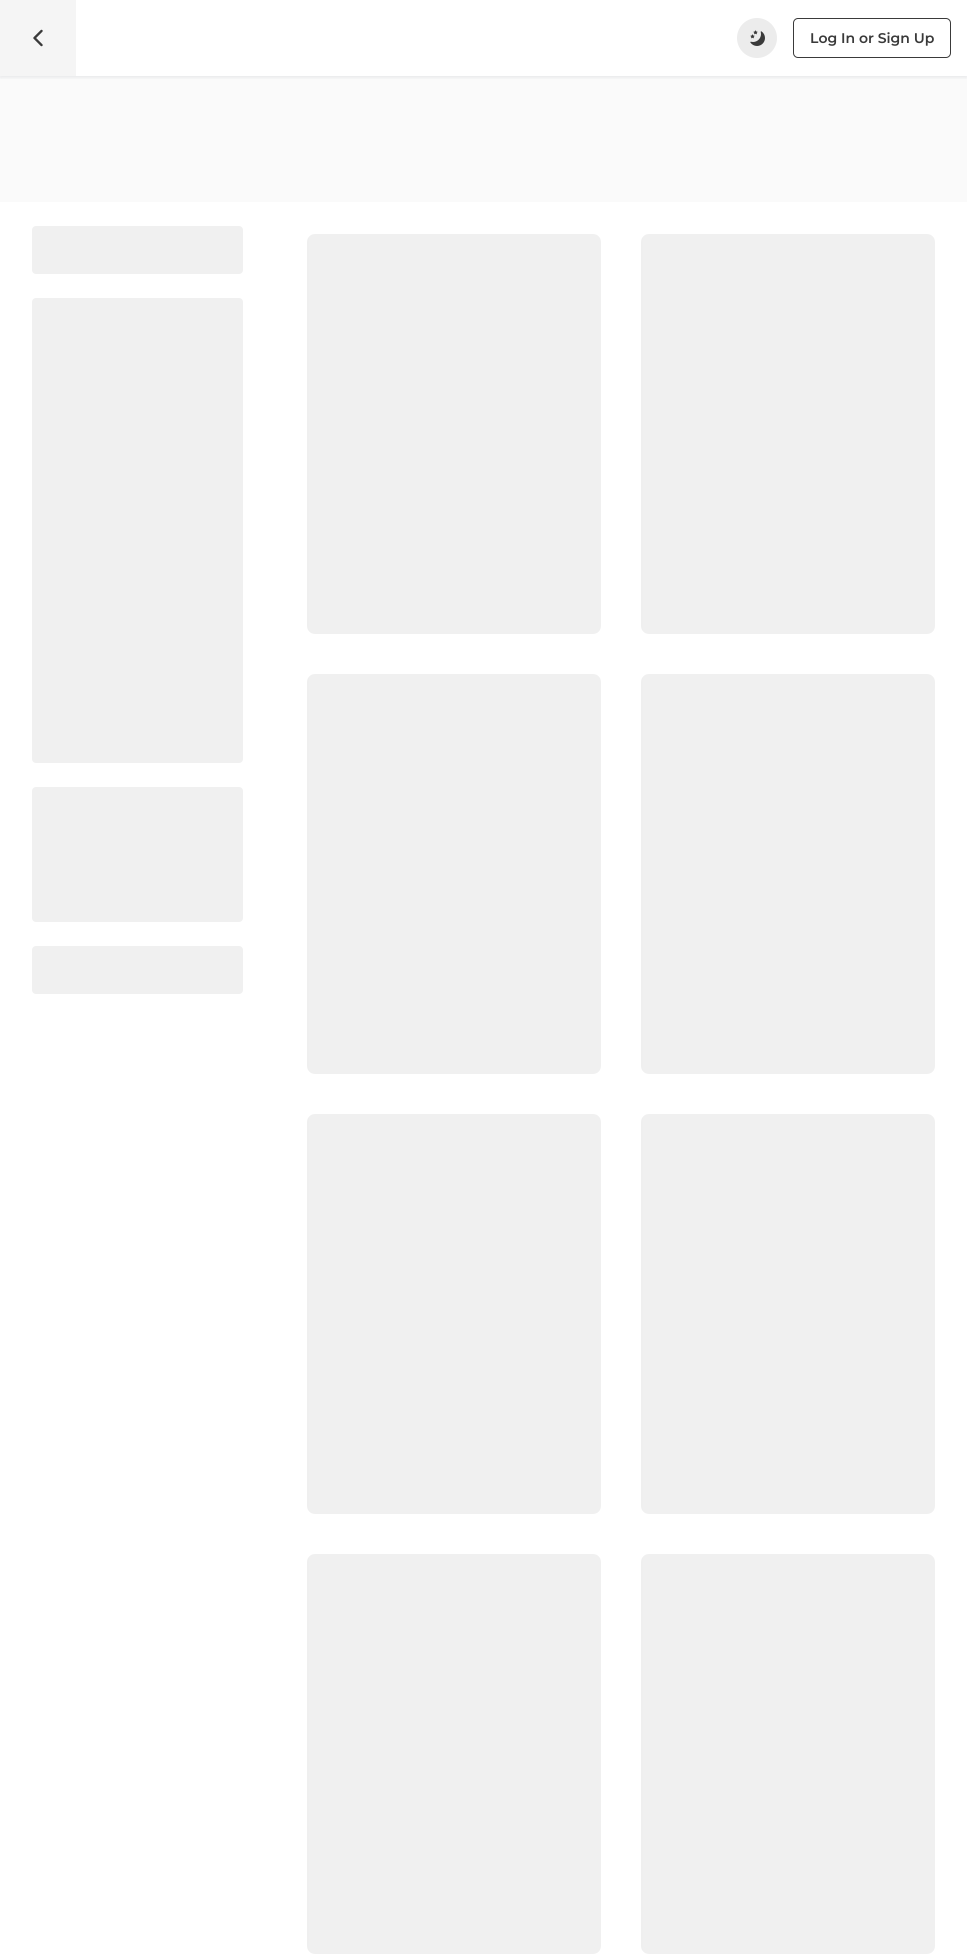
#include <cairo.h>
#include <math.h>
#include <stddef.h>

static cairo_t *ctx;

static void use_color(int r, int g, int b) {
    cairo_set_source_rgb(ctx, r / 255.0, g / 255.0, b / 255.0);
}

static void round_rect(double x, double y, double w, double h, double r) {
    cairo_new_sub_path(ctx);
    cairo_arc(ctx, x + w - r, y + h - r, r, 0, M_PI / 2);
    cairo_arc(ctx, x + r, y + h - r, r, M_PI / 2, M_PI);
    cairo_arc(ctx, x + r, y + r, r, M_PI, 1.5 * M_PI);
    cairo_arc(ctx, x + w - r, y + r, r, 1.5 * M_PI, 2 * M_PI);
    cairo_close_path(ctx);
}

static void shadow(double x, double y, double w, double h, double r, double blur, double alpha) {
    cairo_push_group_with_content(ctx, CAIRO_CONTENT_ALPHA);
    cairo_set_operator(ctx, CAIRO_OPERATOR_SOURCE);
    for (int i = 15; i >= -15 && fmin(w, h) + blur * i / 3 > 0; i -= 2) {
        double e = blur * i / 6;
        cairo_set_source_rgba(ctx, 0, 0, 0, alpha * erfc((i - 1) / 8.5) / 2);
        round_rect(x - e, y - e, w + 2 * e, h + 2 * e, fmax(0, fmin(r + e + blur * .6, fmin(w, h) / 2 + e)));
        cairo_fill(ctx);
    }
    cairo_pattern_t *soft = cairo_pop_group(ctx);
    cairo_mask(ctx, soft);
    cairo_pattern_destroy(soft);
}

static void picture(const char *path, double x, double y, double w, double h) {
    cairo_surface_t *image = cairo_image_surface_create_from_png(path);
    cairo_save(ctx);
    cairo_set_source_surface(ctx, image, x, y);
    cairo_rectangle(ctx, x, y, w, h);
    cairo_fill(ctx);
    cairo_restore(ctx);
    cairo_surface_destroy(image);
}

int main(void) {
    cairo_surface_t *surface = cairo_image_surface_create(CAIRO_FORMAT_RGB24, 967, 1959);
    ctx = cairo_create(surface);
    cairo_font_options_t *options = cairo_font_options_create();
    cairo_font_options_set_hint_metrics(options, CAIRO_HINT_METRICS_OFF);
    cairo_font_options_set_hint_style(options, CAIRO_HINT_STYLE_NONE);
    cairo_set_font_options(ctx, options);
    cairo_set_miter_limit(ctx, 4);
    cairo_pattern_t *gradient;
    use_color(255, 255, 255);
    cairo_paint(ctx);
    use_color(250, 250, 250);
    cairo_rectangle(ctx, 0, 76, 967, 126);
    cairo_fill(ctx);
    cairo_save(ctx);
    cairo_rectangle(ctx, 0, 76, 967, 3);
    cairo_clip(ctx);
    use_color(17, 30, 57);
    shadow(0, 1, 967, 76, 0, 2.5, 0.1);
    cairo_restore(ctx);
    use_color(245, 245, 245);
    cairo_rectangle(ctx, 0, 0, 76, 76);
    cairo_fill(ctx);
    picture("img1.png", 33, 29, 10, 18);
    use_color(236, 236, 236);
    cairo_arc(ctx, 757, 38, 20, 0, 2 * M_PI);
    cairo_fill(ctx);
    picture("img2.png", 750, 30, 15, 16);
    round_rect(793.5, 18.5, 157, 39, 4.5);
    use_color(58, 58, 58);
    cairo_set_line_width(ctx, 1);
    cairo_stroke(ctx);
    cairo_select_font_face(ctx, "Montserrat SemiBold", CAIRO_FONT_SLANT_NORMAL, CAIRO_FONT_WEIGHT_NORMAL);
    cairo_set_font_size(ctx, 14);
    cairo_move_to(ctx, 810, 43);
    cairo_show_text(ctx, "Log In or Sign Up");
    use_color(240, 240, 240);
    round_rect(32, 226, 211, 48, 4);
    cairo_fill(ctx);
    round_rect(32, 298, 211, 465, 4);
    cairo_fill(ctx);
    round_rect(32, 787, 211, 135, 4);
    cairo_fill(ctx);
    round_rect(32, 946, 211, 48, 4);
    cairo_fill(ctx);
    gradient = cairo_pattern_create_linear(54, 434, 854, 434);
    cairo_pattern_add_color_stop_rgba(gradient, 0.08, 0.941, 0.941, 0.941, 1);
    cairo_pattern_add_color_stop_rgba(gradient, 0.18, 0.918, 0.918, 0.918, 1);
    cairo_pattern_add_color_stop_rgba(gradient, 0.33, 0.941, 0.941, 0.941, 1);
    cairo_set_source(ctx, gradient);
    cairo_pattern_destroy(gradient);
    round_rect(307, 234, 294, 400, 8);
    cairo_fill(ctx);
    gradient = cairo_pattern_create_linear(388, 434, 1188, 434);
    cairo_pattern_add_color_stop_rgba(gradient, 0.08, 0.941, 0.941, 0.941, 1);
    cairo_pattern_add_color_stop_rgba(gradient, 0.18, 0.918, 0.918, 0.918, 1);
    cairo_pattern_add_color_stop_rgba(gradient, 0.33, 0.941, 0.941, 0.941, 1);
    cairo_set_source(ctx, gradient);
    cairo_pattern_destroy(gradient);
    round_rect(641, 234, 294, 400, 8);
    cairo_fill(ctx);
    gradient = cairo_pattern_create_linear(54, 874, 854, 874);
    cairo_pattern_add_color_stop_rgba(gradient, 0.08, 0.941, 0.941, 0.941, 1);
    cairo_pattern_add_color_stop_rgba(gradient, 0.18, 0.918, 0.918, 0.918, 1);
    cairo_pattern_add_color_stop_rgba(gradient, 0.33, 0.941, 0.941, 0.941, 1);
    cairo_set_source(ctx, gradient);
    cairo_pattern_destroy(gradient);
    round_rect(307, 674, 294, 400, 8);
    cairo_fill(ctx);
    gradient = cairo_pattern_create_linear(388, 874, 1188, 874);
    cairo_pattern_add_color_stop_rgba(gradient, 0.08, 0.941, 0.941, 0.941, 1);
    cairo_pattern_add_color_stop_rgba(gradient, 0.18, 0.918, 0.918, 0.918, 1);
    cairo_pattern_add_color_stop_rgba(gradient, 0.33, 0.941, 0.941, 0.941, 1);
    cairo_set_source(ctx, gradient);
    cairo_pattern_destroy(gradient);
    round_rect(641, 674, 294, 400, 8);
    cairo_fill(ctx);
    gradient = cairo_pattern_create_linear(54, 1314, 854, 1314);
    cairo_pattern_add_color_stop_rgba(gradient, 0.08, 0.941, 0.941, 0.941, 1);
    cairo_pattern_add_color_stop_rgba(gradient, 0.18, 0.918, 0.918, 0.918, 1);
    cairo_pattern_add_color_stop_rgba(gradient, 0.33, 0.941, 0.941, 0.941, 1);
    cairo_set_source(ctx, gradient);
    cairo_pattern_destroy(gradient);
    round_rect(307, 1114, 294, 400, 8);
    cairo_fill(ctx);
    gradient = cairo_pattern_create_linear(388, 1314, 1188, 1314);
    cairo_pattern_add_color_stop_rgba(gradient, 0.08, 0.941, 0.941, 0.941, 1);
    cairo_pattern_add_color_stop_rgba(gradient, 0.18, 0.918, 0.918, 0.918, 1);
    cairo_pattern_add_color_stop_rgba(gradient, 0.33, 0.941, 0.941, 0.941, 1);
    cairo_set_source(ctx, gradient);
    cairo_pattern_destroy(gradient);
    round_rect(641, 1114, 294, 400, 8);
    cairo_fill(ctx);
    gradient = cairo_pattern_create_linear(54, 1754, 854, 1754);
    cairo_pattern_add_color_stop_rgba(gradient, 0.08, 0.941, 0.941, 0.941, 1);
    cairo_pattern_add_color_stop_rgba(gradient, 0.18, 0.918, 0.918, 0.918, 1);
    cairo_pattern_add_color_stop_rgba(gradient, 0.33, 0.941, 0.941, 0.941, 1);
    cairo_set_source(ctx, gradient);
    cairo_pattern_destroy(gradient);
    round_rect(307, 1554, 294, 400, 8);
    cairo_fill(ctx);
    gradient = cairo_pattern_create_linear(388, 1754, 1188, 1754);
    cairo_pattern_add_color_stop_rgba(gradient, 0.08, 0.941, 0.941, 0.941, 1);
    cairo_pattern_add_color_stop_rgba(gradient, 0.18, 0.918, 0.918, 0.918, 1);
    cairo_pattern_add_color_stop_rgba(gradient, 0.33, 0.941, 0.941, 0.941, 1);
    cairo_set_source(ctx, gradient);
    cairo_pattern_destroy(gradient);
    round_rect(641, 1554, 294, 400, 8);
    cairo_fill(ctx);
    cairo_surface_write_to_png(surface, "result.png");
    cairo_font_options_destroy(options);
    cairo_destroy(ctx);
    cairo_surface_destroy(surface);
    return 0;
}
